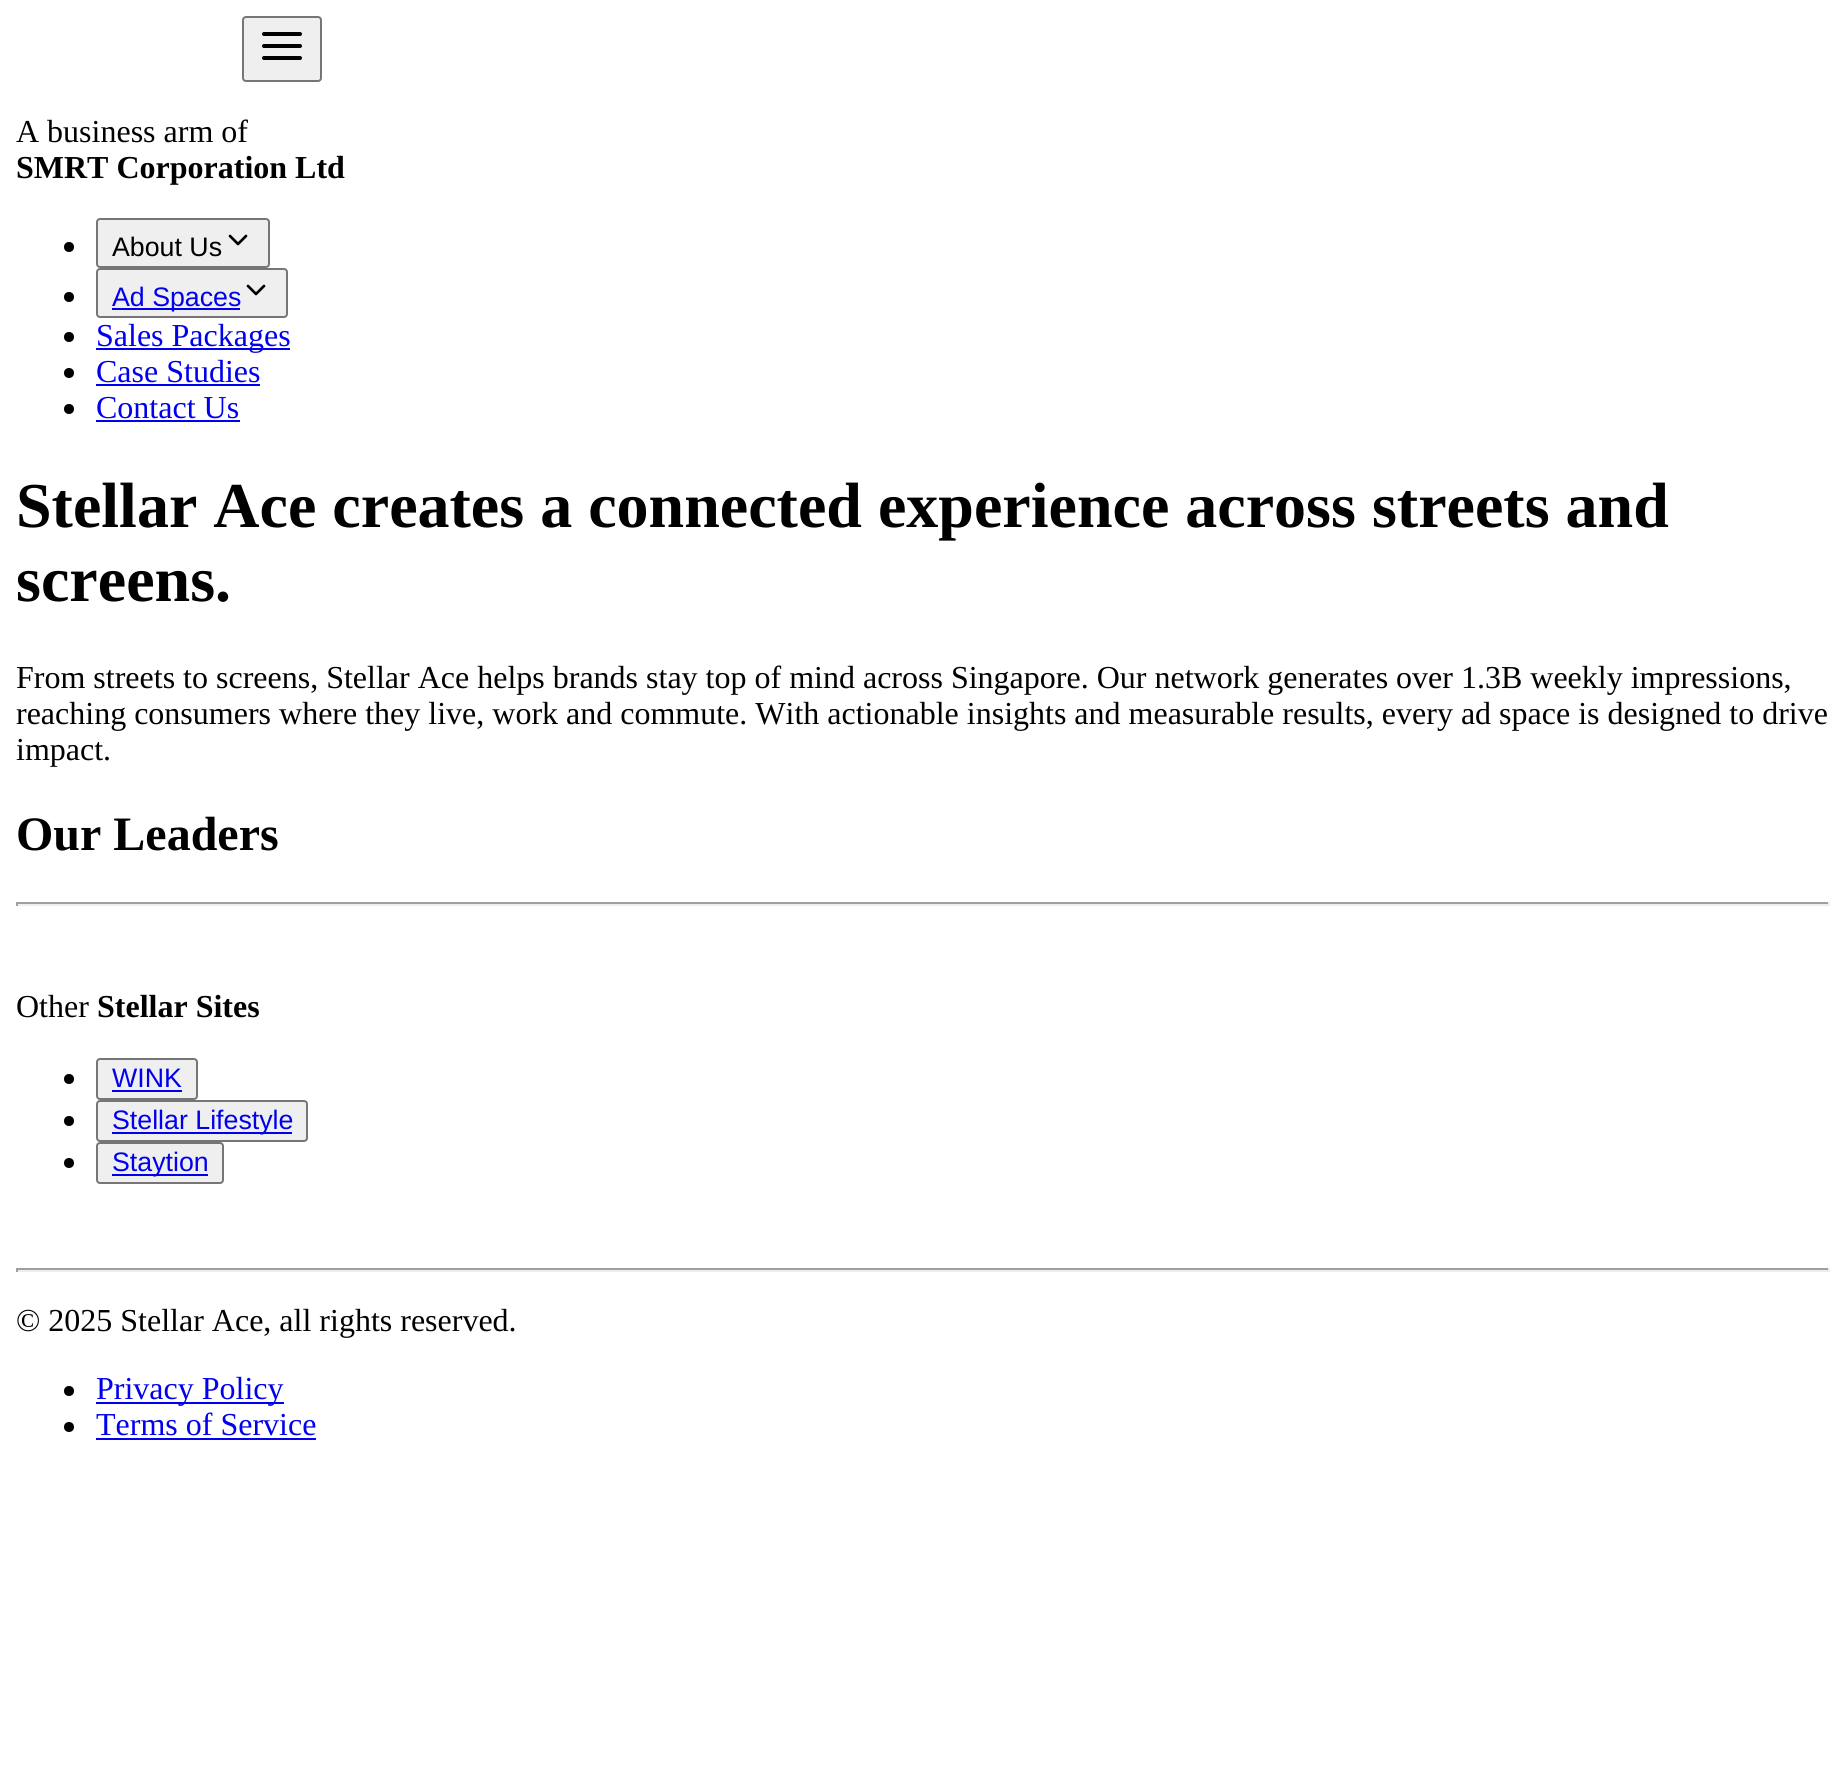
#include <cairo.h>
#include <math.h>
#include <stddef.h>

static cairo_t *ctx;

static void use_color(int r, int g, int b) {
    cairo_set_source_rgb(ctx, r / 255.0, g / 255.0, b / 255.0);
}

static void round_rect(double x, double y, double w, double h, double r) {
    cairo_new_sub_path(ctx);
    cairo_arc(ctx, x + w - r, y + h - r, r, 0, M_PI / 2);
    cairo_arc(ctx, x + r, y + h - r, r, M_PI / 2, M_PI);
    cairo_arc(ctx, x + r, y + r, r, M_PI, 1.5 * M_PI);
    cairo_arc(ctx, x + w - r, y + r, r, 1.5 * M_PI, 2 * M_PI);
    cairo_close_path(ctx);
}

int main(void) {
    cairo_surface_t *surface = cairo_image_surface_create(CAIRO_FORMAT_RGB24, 1846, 1781);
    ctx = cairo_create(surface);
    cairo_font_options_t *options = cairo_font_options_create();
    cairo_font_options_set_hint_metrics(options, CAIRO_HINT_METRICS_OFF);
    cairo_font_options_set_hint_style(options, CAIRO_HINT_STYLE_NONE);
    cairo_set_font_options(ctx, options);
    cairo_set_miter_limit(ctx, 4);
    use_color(255, 255, 255);
    cairo_paint(ctx);
    use_color(239, 239, 239);
    round_rect(243, 17, 78, 64, 3);
    cairo_fill_preserve(ctx);
    use_color(118, 118, 118);
    cairo_stroke(ctx);
    cairo_new_path(ctx);
    cairo_move_to(ctx, 264, 46);
    cairo_line_to(ctx, 300, 46);
    cairo_move_to(ctx, 264, 34);
    cairo_line_to(ctx, 300, 34);
    cairo_move_to(ctx, 264, 58);
    cairo_line_to(ctx, 300, 58);
    use_color(0, 0, 0);
    cairo_set_line_width(ctx, 4);
    cairo_set_line_cap(ctx, CAIRO_LINE_CAP_ROUND);
    cairo_set_line_join(ctx, CAIRO_LINE_JOIN_ROUND);
    cairo_stroke(ctx);
    cairo_select_font_face(ctx, "Liberation Serif", CAIRO_FONT_SLANT_NORMAL, CAIRO_FONT_WEIGHT_NORMAL);
    cairo_set_font_size(ctx, 32);
    cairo_move_to(ctx, 16, 142);
    cairo_show_text(ctx, "A business arm of");
    cairo_select_font_face(ctx, "Liberation Serif", CAIRO_FONT_SLANT_NORMAL, CAIRO_FONT_WEIGHT_BOLD);
    cairo_move_to(ctx, 16, 178);
    cairo_show_text(ctx, "SMRT Corporation Ltd");
    cairo_new_path(ctx);
    cairo_arc(ctx, 69, 247, 5, 0, 2 * M_PI);
    cairo_fill(ctx);
    use_color(239, 239, 239);
    round_rect(97, 219, 172, 48, 3);
    cairo_fill_preserve(ctx);
    use_color(118, 118, 118);
    cairo_set_line_width(ctx, 2);
    cairo_set_line_cap(ctx, CAIRO_LINE_CAP_BUTT);
    cairo_set_line_join(ctx, CAIRO_LINE_JOIN_MITER);
    cairo_stroke(ctx);
    cairo_select_font_face(ctx, "Liberation Sans", CAIRO_FONT_SLANT_NORMAL, CAIRO_FONT_WEIGHT_NORMAL);
    cairo_set_font_size(ctx, 26.75);
    use_color(0, 0, 0);
    cairo_move_to(ctx, 112, 256);
    cairo_show_text(ctx, "About Us");
    use_color(239, 239, 239);
    round_rect(97, 269, 190, 48, 3);
    cairo_fill_preserve(ctx);
    use_color(118, 118, 118);
    cairo_stroke(ctx);
    use_color(0, 0, 238);
    cairo_rectangle(ctx, 112, 308, 128, 2);
    cairo_fill(ctx);
    cairo_move_to(ctx, 112, 306);
    cairo_show_text(ctx, "Ad Spaces");
    cairo_new_path(ctx);
    cairo_move_to(ctx, 230, 236);
    cairo_line_to(ctx, 238, 244);
    cairo_line_to(ctx, 246, 236);
    cairo_move_to(ctx, 248, 286);
    cairo_line_to(ctx, 256, 294);
    cairo_line_to(ctx, 264, 286);
    use_color(0, 0, 0);
    cairo_set_line_width(ctx, 2.7);
    cairo_set_line_cap(ctx, CAIRO_LINE_CAP_ROUND);
    cairo_set_line_join(ctx, CAIRO_LINE_JOIN_ROUND);
    cairo_stroke(ctx);
    cairo_arc(ctx, 69, 297, 5, 0, 2 * M_PI);
    cairo_fill(ctx);
    cairo_arc(ctx, 69, 337, 5, 0, 2 * M_PI);
    cairo_fill(ctx);
    use_color(0, 0, 238);
    cairo_rectangle(ctx, 96, 348, 194, 2);
    cairo_fill(ctx);
    cairo_select_font_face(ctx, "Liberation Serif", CAIRO_FONT_SLANT_NORMAL, CAIRO_FONT_WEIGHT_NORMAL);
    cairo_set_font_size(ctx, 32);
    cairo_move_to(ctx, 96, 346);
    cairo_show_text(ctx, "Sales Packages");
    use_color(0, 0, 0);
    cairo_new_path(ctx);
    cairo_arc(ctx, 69, 373, 5, 0, 2 * M_PI);
    cairo_fill(ctx);
    use_color(0, 0, 238);
    cairo_move_to(ctx, 96, 382);
    cairo_show_text(ctx, "Case Studies");
    cairo_rectangle(ctx, 96, 384, 164, 2);
    cairo_fill(ctx);
    use_color(0, 0, 0);
    cairo_arc(ctx, 69, 409, 5, 0, 2 * M_PI);
    cairo_fill(ctx);
    use_color(0, 0, 238);
    cairo_move_to(ctx, 96, 418);
    cairo_show_text(ctx, "Contact Us");
    cairo_rectangle(ctx, 96, 420, 144, 2);
    cairo_fill(ctx);
    cairo_select_font_face(ctx, "Liberation Serif", CAIRO_FONT_SLANT_NORMAL, CAIRO_FONT_WEIGHT_BOLD);
    cairo_set_font_size(ctx, 64);
    use_color(0, 0, 0);
    cairo_move_to(ctx, 16, 527);
    cairo_show_text(ctx, "Stellar Ace creates a connected experience across streets and");
    cairo_move_to(ctx, 16, 601);
    cairo_show_text(ctx, "screens.");
    cairo_select_font_face(ctx, "Liberation Serif", CAIRO_FONT_SLANT_NORMAL, CAIRO_FONT_WEIGHT_NORMAL);
    cairo_set_font_size(ctx, 32);
    cairo_move_to(ctx, 16, 688);
    cairo_show_text(ctx, "From streets to screens, Stellar Ace helps brands stay top of mind across Singapore. Our network generates over 1.3B weekly impressions,");
    cairo_move_to(ctx, 16, 724);
    cairo_show_text(ctx, "reaching consumers where they live, work and commute. With actionable insights and measurable results, every ad space is designed to drive");
    cairo_move_to(ctx, 16, 760);
    cairo_show_text(ctx, "impact.");
    cairo_select_font_face(ctx, "Liberation Serif", CAIRO_FONT_SLANT_NORMAL, CAIRO_FONT_WEIGHT_BOLD);
    cairo_set_font_size(ctx, 48);
    cairo_move_to(ctx, 16, 850);
    cairo_show_text(ctx, "Our Leaders");
    use_color(159, 159, 159);
    cairo_rectangle(ctx, 16, 902, 1814, 2);
    cairo_fill(ctx);
    use_color(238, 238, 238);
    cairo_rectangle(ctx, 1828, 902, 2, 4);
    cairo_fill(ctx);
    cairo_rectangle(ctx, 16, 904, 1814, 2);
    cairo_fill(ctx);
    use_color(159, 159, 159);
    cairo_rectangle(ctx, 16, 902, 2, 4);
    cairo_fill(ctx);
    cairo_select_font_face(ctx, "Liberation Serif", CAIRO_FONT_SLANT_NORMAL, CAIRO_FONT_WEIGHT_NORMAL);
    cairo_set_font_size(ctx, 32);
    use_color(0, 0, 0);
    cairo_move_to(ctx, 16, 1017);
    cairo_show_text(ctx, "Other");
    cairo_select_font_face(ctx, "Liberation Serif", CAIRO_FONT_SLANT_NORMAL, CAIRO_FONT_WEIGHT_BOLD);
    cairo_move_to(ctx, 97, 1017);
    cairo_show_text(ctx, "Stellar Sites");
    cairo_new_path(ctx);
    cairo_arc(ctx, 69, 1079, 5, 0, 2 * M_PI);
    cairo_fill(ctx);
    use_color(239, 239, 239);
    round_rect(97, 1059, 100, 40, 3);
    cairo_fill_preserve(ctx);
    use_color(118, 118, 118);
    cairo_set_line_width(ctx, 2);
    cairo_set_line_cap(ctx, CAIRO_LINE_CAP_BUTT);
    cairo_set_line_join(ctx, CAIRO_LINE_JOIN_MITER);
    cairo_stroke(ctx);
    cairo_select_font_face(ctx, "Liberation Sans", CAIRO_FONT_SLANT_NORMAL, CAIRO_FONT_WEIGHT_NORMAL);
    cairo_set_font_size(ctx, 26.75);
    use_color(0, 0, 238);
    cairo_move_to(ctx, 112, 1087);
    cairo_show_text(ctx, "WINK");
    cairo_rectangle(ctx, 112, 1090, 70, 2);
    cairo_fill(ctx);
    use_color(0, 0, 0);
    cairo_arc(ctx, 69, 1121, 5, 0, 2 * M_PI);
    cairo_fill(ctx);
    use_color(239, 239, 239);
    round_rect(97, 1101, 210, 40, 3);
    cairo_fill_preserve(ctx);
    use_color(118, 118, 118);
    cairo_stroke(ctx);
    use_color(0, 0, 238);
    cairo_rectangle(ctx, 112, 1132, 180, 2);
    cairo_fill(ctx);
    cairo_move_to(ctx, 112, 1129);
    cairo_show_text(ctx, "Stellar Lifestyle");
    use_color(0, 0, 0);
    cairo_new_path(ctx);
    cairo_arc(ctx, 69, 1163, 5, 0, 2 * M_PI);
    cairo_fill(ctx);
    use_color(239, 239, 239);
    round_rect(97, 1143, 126, 40, 3);
    cairo_fill_preserve(ctx);
    use_color(118, 118, 118);
    cairo_stroke(ctx);
    use_color(0, 0, 238);
    cairo_rectangle(ctx, 112, 1174, 96, 2);
    cairo_fill(ctx);
    cairo_move_to(ctx, 112, 1171);
    cairo_show_text(ctx, "Staytion");
    use_color(159, 159, 159);
    cairo_rectangle(ctx, 16, 1268, 1814, 2);
    cairo_fill(ctx);
    use_color(238, 238, 238);
    cairo_rectangle(ctx, 1828, 1268, 2, 4);
    cairo_fill(ctx);
    cairo_rectangle(ctx, 16, 1270, 1814, 2);
    cairo_fill(ctx);
    use_color(159, 159, 159);
    cairo_rectangle(ctx, 16, 1268, 2, 4);
    cairo_fill(ctx);
    cairo_select_font_face(ctx, "Liberation Serif", CAIRO_FONT_SLANT_NORMAL, CAIRO_FONT_WEIGHT_NORMAL);
    cairo_set_font_size(ctx, 32);
    use_color(0, 0, 0);
    cairo_move_to(ctx, 16, 1331);
    cairo_show_text(ctx, "© 2025 Stellar Ace, all rights reserved.");
    cairo_new_path(ctx);
    cairo_arc(ctx, 69, 1391, 5, 0, 2 * M_PI);
    cairo_fill(ctx);
    use_color(0, 0, 238);
    cairo_rectangle(ctx, 96, 1402, 188, 2);
    cairo_fill(ctx);
    cairo_move_to(ctx, 96, 1399);
    cairo_show_text(ctx, "Privacy Policy");
    use_color(0, 0, 0);
    cairo_new_path(ctx);
    cairo_arc(ctx, 69, 1427, 5, 0, 2 * M_PI);
    cairo_fill(ctx);
    use_color(0, 0, 238);
    cairo_move_to(ctx, 96, 1435);
    cairo_show_text(ctx, "Terms of Service");
    cairo_rectangle(ctx, 96, 1438, 220, 2);
    cairo_fill(ctx);
    cairo_surface_write_to_png(surface, "result.png");
    cairo_font_options_destroy(options);
    cairo_destroy(ctx);
    cairo_surface_destroy(surface);
    return 0;
}
